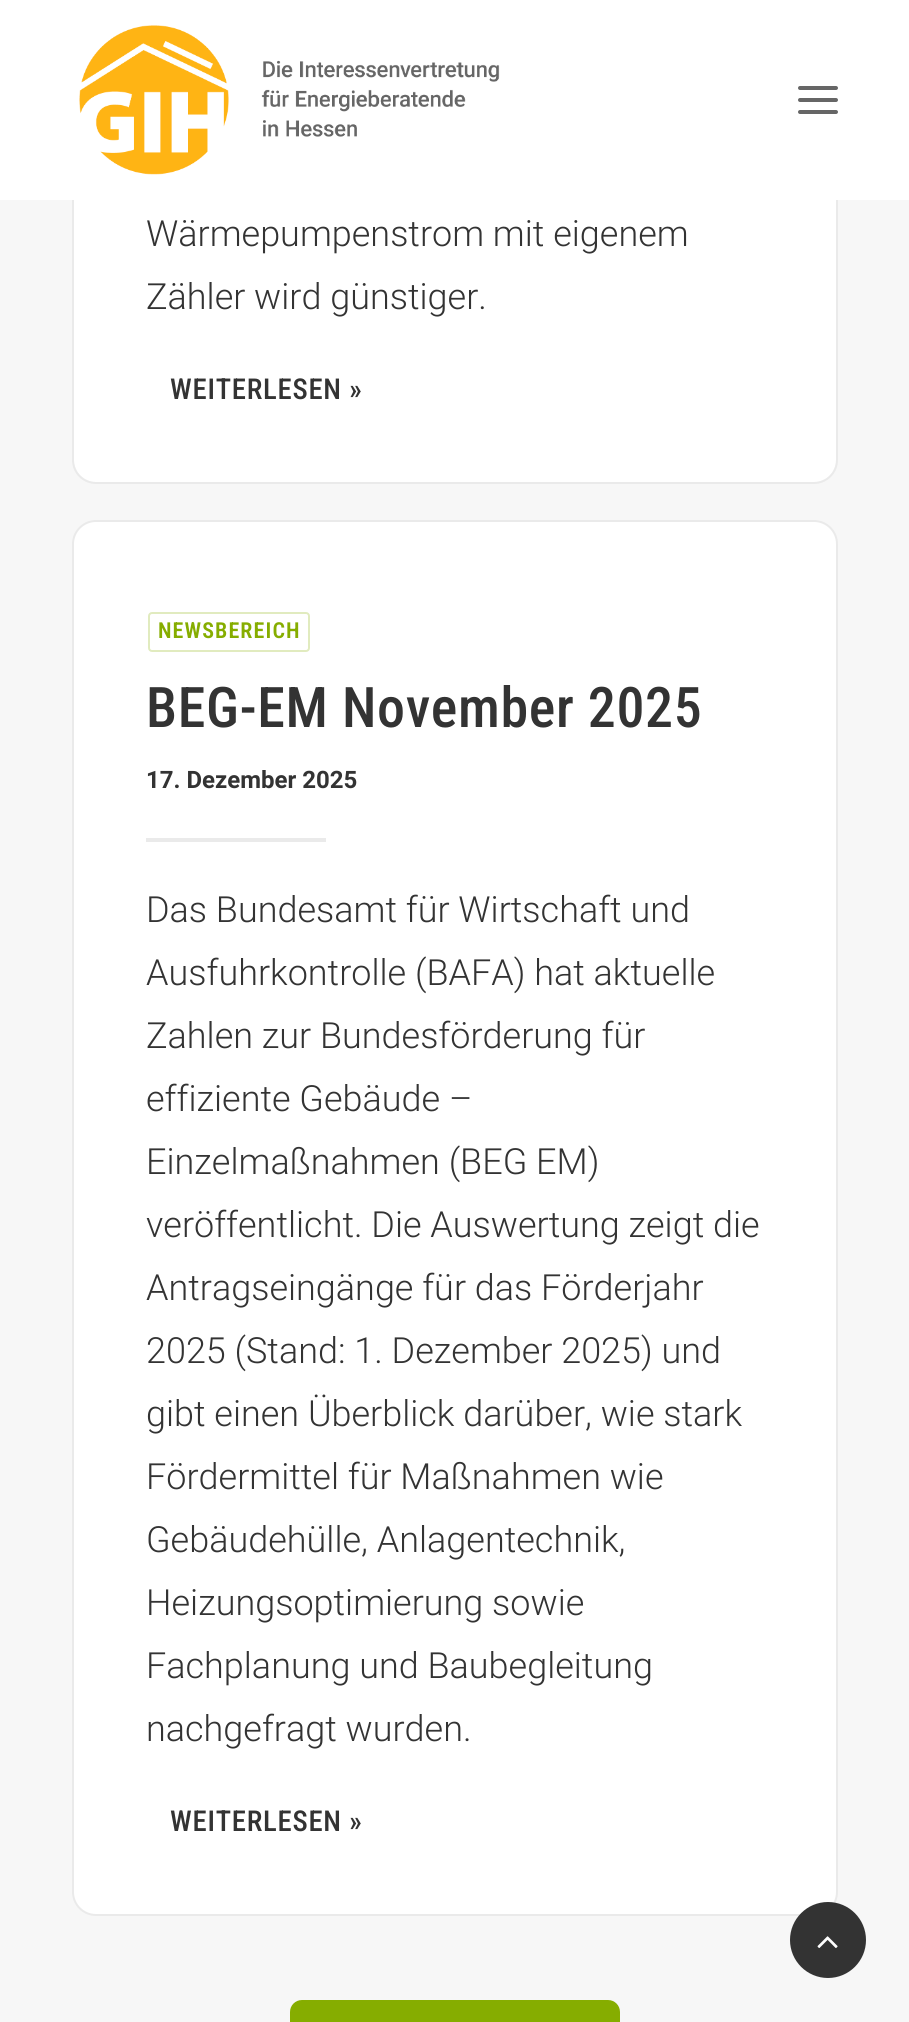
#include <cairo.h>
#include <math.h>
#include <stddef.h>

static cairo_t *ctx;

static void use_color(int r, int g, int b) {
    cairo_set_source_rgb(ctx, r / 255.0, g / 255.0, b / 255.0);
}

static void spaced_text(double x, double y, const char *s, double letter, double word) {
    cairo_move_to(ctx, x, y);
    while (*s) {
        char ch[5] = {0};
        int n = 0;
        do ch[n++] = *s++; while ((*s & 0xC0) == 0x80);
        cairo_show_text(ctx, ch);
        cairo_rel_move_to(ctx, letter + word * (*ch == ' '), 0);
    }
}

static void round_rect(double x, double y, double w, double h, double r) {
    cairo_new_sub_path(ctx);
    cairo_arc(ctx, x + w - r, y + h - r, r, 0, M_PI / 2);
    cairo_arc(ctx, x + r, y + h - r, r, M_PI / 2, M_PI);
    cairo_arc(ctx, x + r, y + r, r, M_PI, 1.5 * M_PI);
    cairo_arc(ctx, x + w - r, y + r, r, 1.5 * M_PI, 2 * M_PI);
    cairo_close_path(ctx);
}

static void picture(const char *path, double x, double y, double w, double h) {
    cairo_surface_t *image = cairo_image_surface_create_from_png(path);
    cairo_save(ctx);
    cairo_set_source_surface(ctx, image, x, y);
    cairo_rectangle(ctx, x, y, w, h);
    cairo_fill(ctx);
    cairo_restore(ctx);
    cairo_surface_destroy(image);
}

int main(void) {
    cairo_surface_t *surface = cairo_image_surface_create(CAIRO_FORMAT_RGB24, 909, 2022);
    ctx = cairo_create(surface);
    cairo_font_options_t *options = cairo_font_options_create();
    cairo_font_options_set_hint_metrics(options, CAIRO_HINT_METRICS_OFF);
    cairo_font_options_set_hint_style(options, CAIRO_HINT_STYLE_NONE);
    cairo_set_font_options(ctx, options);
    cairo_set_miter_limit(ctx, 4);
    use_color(247, 247, 247);
    cairo_paint(ctx);
    use_color(255, 255, 255);
    round_rect(74, -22, 762, 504, 22);
    cairo_fill(ctx);
    round_rect(73, -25, 764, 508, 23);
    use_color(234, 234, 234);
    cairo_stroke(ctx);
    use_color(255, 255, 255);
    cairo_rectangle(ctx, 0, 0, 909, 200);
    cairo_fill(ctx);
    picture("img1.png", 79, 25, 421, 150);
    use_color(102, 102, 102);
    round_rect(798, 98, 40, 4, 2);
    cairo_fill(ctx);
    round_rect(798, 86, 40, 4, 2);
    cairo_fill(ctx);
    round_rect(798, 110, 40, 4, 2);
    cairo_fill(ctx);
    cairo_select_font_face(ctx, "Roboto Light", CAIRO_FONT_SLANT_NORMAL, CAIRO_FONT_WEIGHT_NORMAL);
    cairo_set_font_size(ctx, 36);
    use_color(51, 51, 51);
    cairo_move_to(ctx, 146, 246);
    cairo_show_text(ctx, "Wärmepumpenstrom mit eigenem");
    cairo_move_to(ctx, 146, 309);
    cairo_show_text(ctx, "Zähler wird günstiger.");
    cairo_select_font_face(ctx, "Roboto Condensed Medium", CAIRO_FONT_SLANT_NORMAL, CAIRO_FONT_WEIGHT_NORMAL);
    cairo_set_font_size(ctx, 28.75);
    spaced_text(170, 399, "WEITERLESEN »", 0.75, 0);
    use_color(255, 255, 255);
    round_rect(73, 521, 764, 1394, 23);
    cairo_fill_preserve(ctx);
    use_color(234, 234, 234);
    cairo_stroke(ctx);
    round_rect(149, 613, 160, 38, 3);
    use_color(225, 235, 191);
    cairo_stroke(ctx);
    cairo_select_font_face(ctx, "Roboto Condensed SemiBold", CAIRO_FONT_SLANT_NORMAL, CAIRO_FONT_WEIGHT_NORMAL);
    cairo_set_font_size(ctx, 22);
    use_color(134, 173, 0);
    spaced_text(158, 638, "NEWSBEREICH", 1.1, 0);
    cairo_select_font_face(ctx, "Roboto Condensed Medium", CAIRO_FONT_SLANT_NORMAL, CAIRO_FONT_WEIGHT_NORMAL);
    cairo_set_font_size(ctx, 56);
    use_color(51, 51, 51);
    spaced_text(146, 727, "BEG-EM November 2025", 0.6, 0);
    cairo_select_font_face(ctx, "Roboto", CAIRO_FONT_SLANT_NORMAL, CAIRO_FONT_WEIGHT_BOLD);
    cairo_set_font_size(ctx, 24);
    cairo_move_to(ctx, 146, 788);
    cairo_show_text(ctx, "17. Dezember 2025");
    use_color(234, 234, 234);
    cairo_rectangle(ctx, 146, 838, 180, 4);
    cairo_fill(ctx);
    cairo_select_font_face(ctx, "Roboto Light", CAIRO_FONT_SLANT_NORMAL, CAIRO_FONT_WEIGHT_NORMAL);
    cairo_set_font_size(ctx, 36);
    use_color(51, 51, 51);
    cairo_move_to(ctx, 146, 922);
    cairo_show_text(ctx, "Das Bundesamt für Wirtschaft und");
    cairo_move_to(ctx, 146, 985);
    cairo_show_text(ctx, "Ausfuhrkontrolle (BAFA) hat aktuelle");
    cairo_move_to(ctx, 146, 1048);
    cairo_show_text(ctx, "Zahlen zur Bundesförderung für");
    cairo_move_to(ctx, 146, 1111);
    cairo_show_text(ctx, "effiziente Gebäude –");
    cairo_move_to(ctx, 146, 1174);
    cairo_show_text(ctx, "Einzelmaßnahmen (BEG EM)");
    cairo_move_to(ctx, 146, 1237);
    cairo_show_text(ctx, "veröffentlicht. Die Auswertung zeigt die");
    cairo_move_to(ctx, 146, 1300);
    cairo_show_text(ctx, "Antragseingänge für das Förderjahr");
    cairo_move_to(ctx, 146, 1363);
    cairo_show_text(ctx, "2025 (Stand: 1. Dezember 2025) und");
    cairo_move_to(ctx, 146, 1426);
    cairo_show_text(ctx, "gibt einen Überblick darüber, wie stark");
    cairo_move_to(ctx, 146, 1489);
    cairo_show_text(ctx, "Fördermittel für Maßnahmen wie");
    cairo_move_to(ctx, 146, 1552);
    cairo_show_text(ctx, "Gebäudehülle, Anlagentechnik,");
    cairo_move_to(ctx, 146, 1615);
    cairo_show_text(ctx, "Heizungsoptimierung sowie");
    cairo_move_to(ctx, 146, 1678);
    cairo_show_text(ctx, "Fachplanung und Baubegleitung");
    cairo_move_to(ctx, 146, 1741);
    cairo_show_text(ctx, "nachgefragt wurden.");
    cairo_select_font_face(ctx, "Roboto Condensed Medium", CAIRO_FONT_SLANT_NORMAL, CAIRO_FONT_WEIGHT_NORMAL);
    cairo_set_font_size(ctx, 28.75);
    spaced_text(170, 1831, "WEITERLESEN »", 0.75, 0);
    use_color(134, 173, 0);
    round_rect(291, 2001, 328, 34, 11);
    cairo_fill_preserve(ctx);
    cairo_stroke(ctx);
    use_color(51, 51, 51);
    cairo_arc(ctx, 828, 1940, 37, 0, 2 * M_PI);
    cairo_fill_preserve(ctx);
    cairo_stroke(ctx);
    picture("img2.png", 817, 1936, 21, 12);
    cairo_surface_write_to_png(surface, "result.png");
    cairo_font_options_destroy(options);
    cairo_destroy(ctx);
    cairo_surface_destroy(surface);
    return 0;
}
